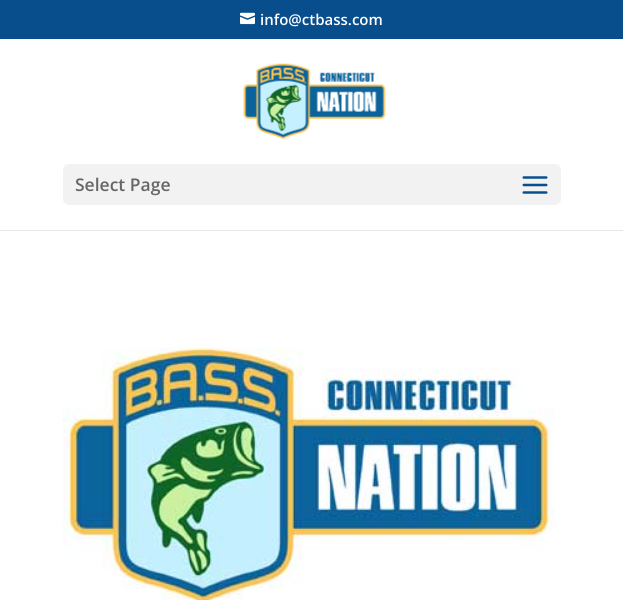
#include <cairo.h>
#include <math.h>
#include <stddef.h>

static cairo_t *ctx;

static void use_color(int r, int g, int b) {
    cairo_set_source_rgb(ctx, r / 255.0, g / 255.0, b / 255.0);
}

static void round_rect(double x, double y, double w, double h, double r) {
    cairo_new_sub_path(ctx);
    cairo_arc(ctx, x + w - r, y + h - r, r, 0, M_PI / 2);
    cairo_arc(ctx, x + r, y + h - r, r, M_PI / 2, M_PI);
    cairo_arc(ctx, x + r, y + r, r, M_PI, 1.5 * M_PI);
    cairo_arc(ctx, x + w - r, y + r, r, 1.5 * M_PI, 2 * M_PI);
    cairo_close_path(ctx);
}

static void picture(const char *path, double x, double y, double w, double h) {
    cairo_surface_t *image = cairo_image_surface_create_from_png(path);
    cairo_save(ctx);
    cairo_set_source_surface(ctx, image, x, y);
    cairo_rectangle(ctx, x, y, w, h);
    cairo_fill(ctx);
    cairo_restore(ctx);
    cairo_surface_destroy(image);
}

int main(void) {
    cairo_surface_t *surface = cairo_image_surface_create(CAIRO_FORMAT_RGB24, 623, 600);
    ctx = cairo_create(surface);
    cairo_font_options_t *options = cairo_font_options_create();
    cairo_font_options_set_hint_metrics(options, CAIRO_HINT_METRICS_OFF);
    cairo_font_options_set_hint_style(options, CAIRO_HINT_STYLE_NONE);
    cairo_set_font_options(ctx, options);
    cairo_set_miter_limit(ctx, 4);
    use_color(255, 255, 255);
    cairo_paint(ctx);
    use_color(8, 77, 140);
    cairo_rectangle(ctx, 0, 0, 623, 39);
    cairo_fill(ctx);
    picture("img1.png", 240, 12, 15, 13);
    cairo_select_font_face(ctx, "Open Sans SemiBold", CAIRO_FONT_SLANT_NORMAL, CAIRO_FONT_WEIGHT_NORMAL);
    cairo_set_font_size(ctx, 15);
    use_color(255, 255, 255);
    cairo_move_to(ctx, 260, 25);
    cairo_show_text(ctx, "info@ctbass.com");
    use_color(230, 230, 230);
    cairo_new_path(ctx);
    cairo_move_to(ctx, 0, 230);
    cairo_line_to(ctx, 0, 231);
    cairo_line_to(ctx, 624, 231);
    cairo_line_to(ctx, 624, 40);
    cairo_line_to(ctx, 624, 230);
    cairo_close_path(ctx);
    cairo_fill(ctx);
    picture("img2.png", 243, 63, 143, 76);
    use_color(242, 242, 242);
    round_rect(63, 164, 498, 41, 6);
    cairo_fill(ctx);
    cairo_set_font_size(ctx, 17.5);
    use_color(102, 102, 102);
    cairo_move_to(ctx, 75, 191);
    cairo_show_text(ctx, "Select Page");
    picture("img3.png", 522, 176, 26, 18);
    picture("img4.png", 62, 347, 493, 253);
    cairo_surface_write_to_png(surface, "result.png");
    cairo_font_options_destroy(options);
    cairo_destroy(ctx);
    cairo_surface_destroy(surface);
    return 0;
}
